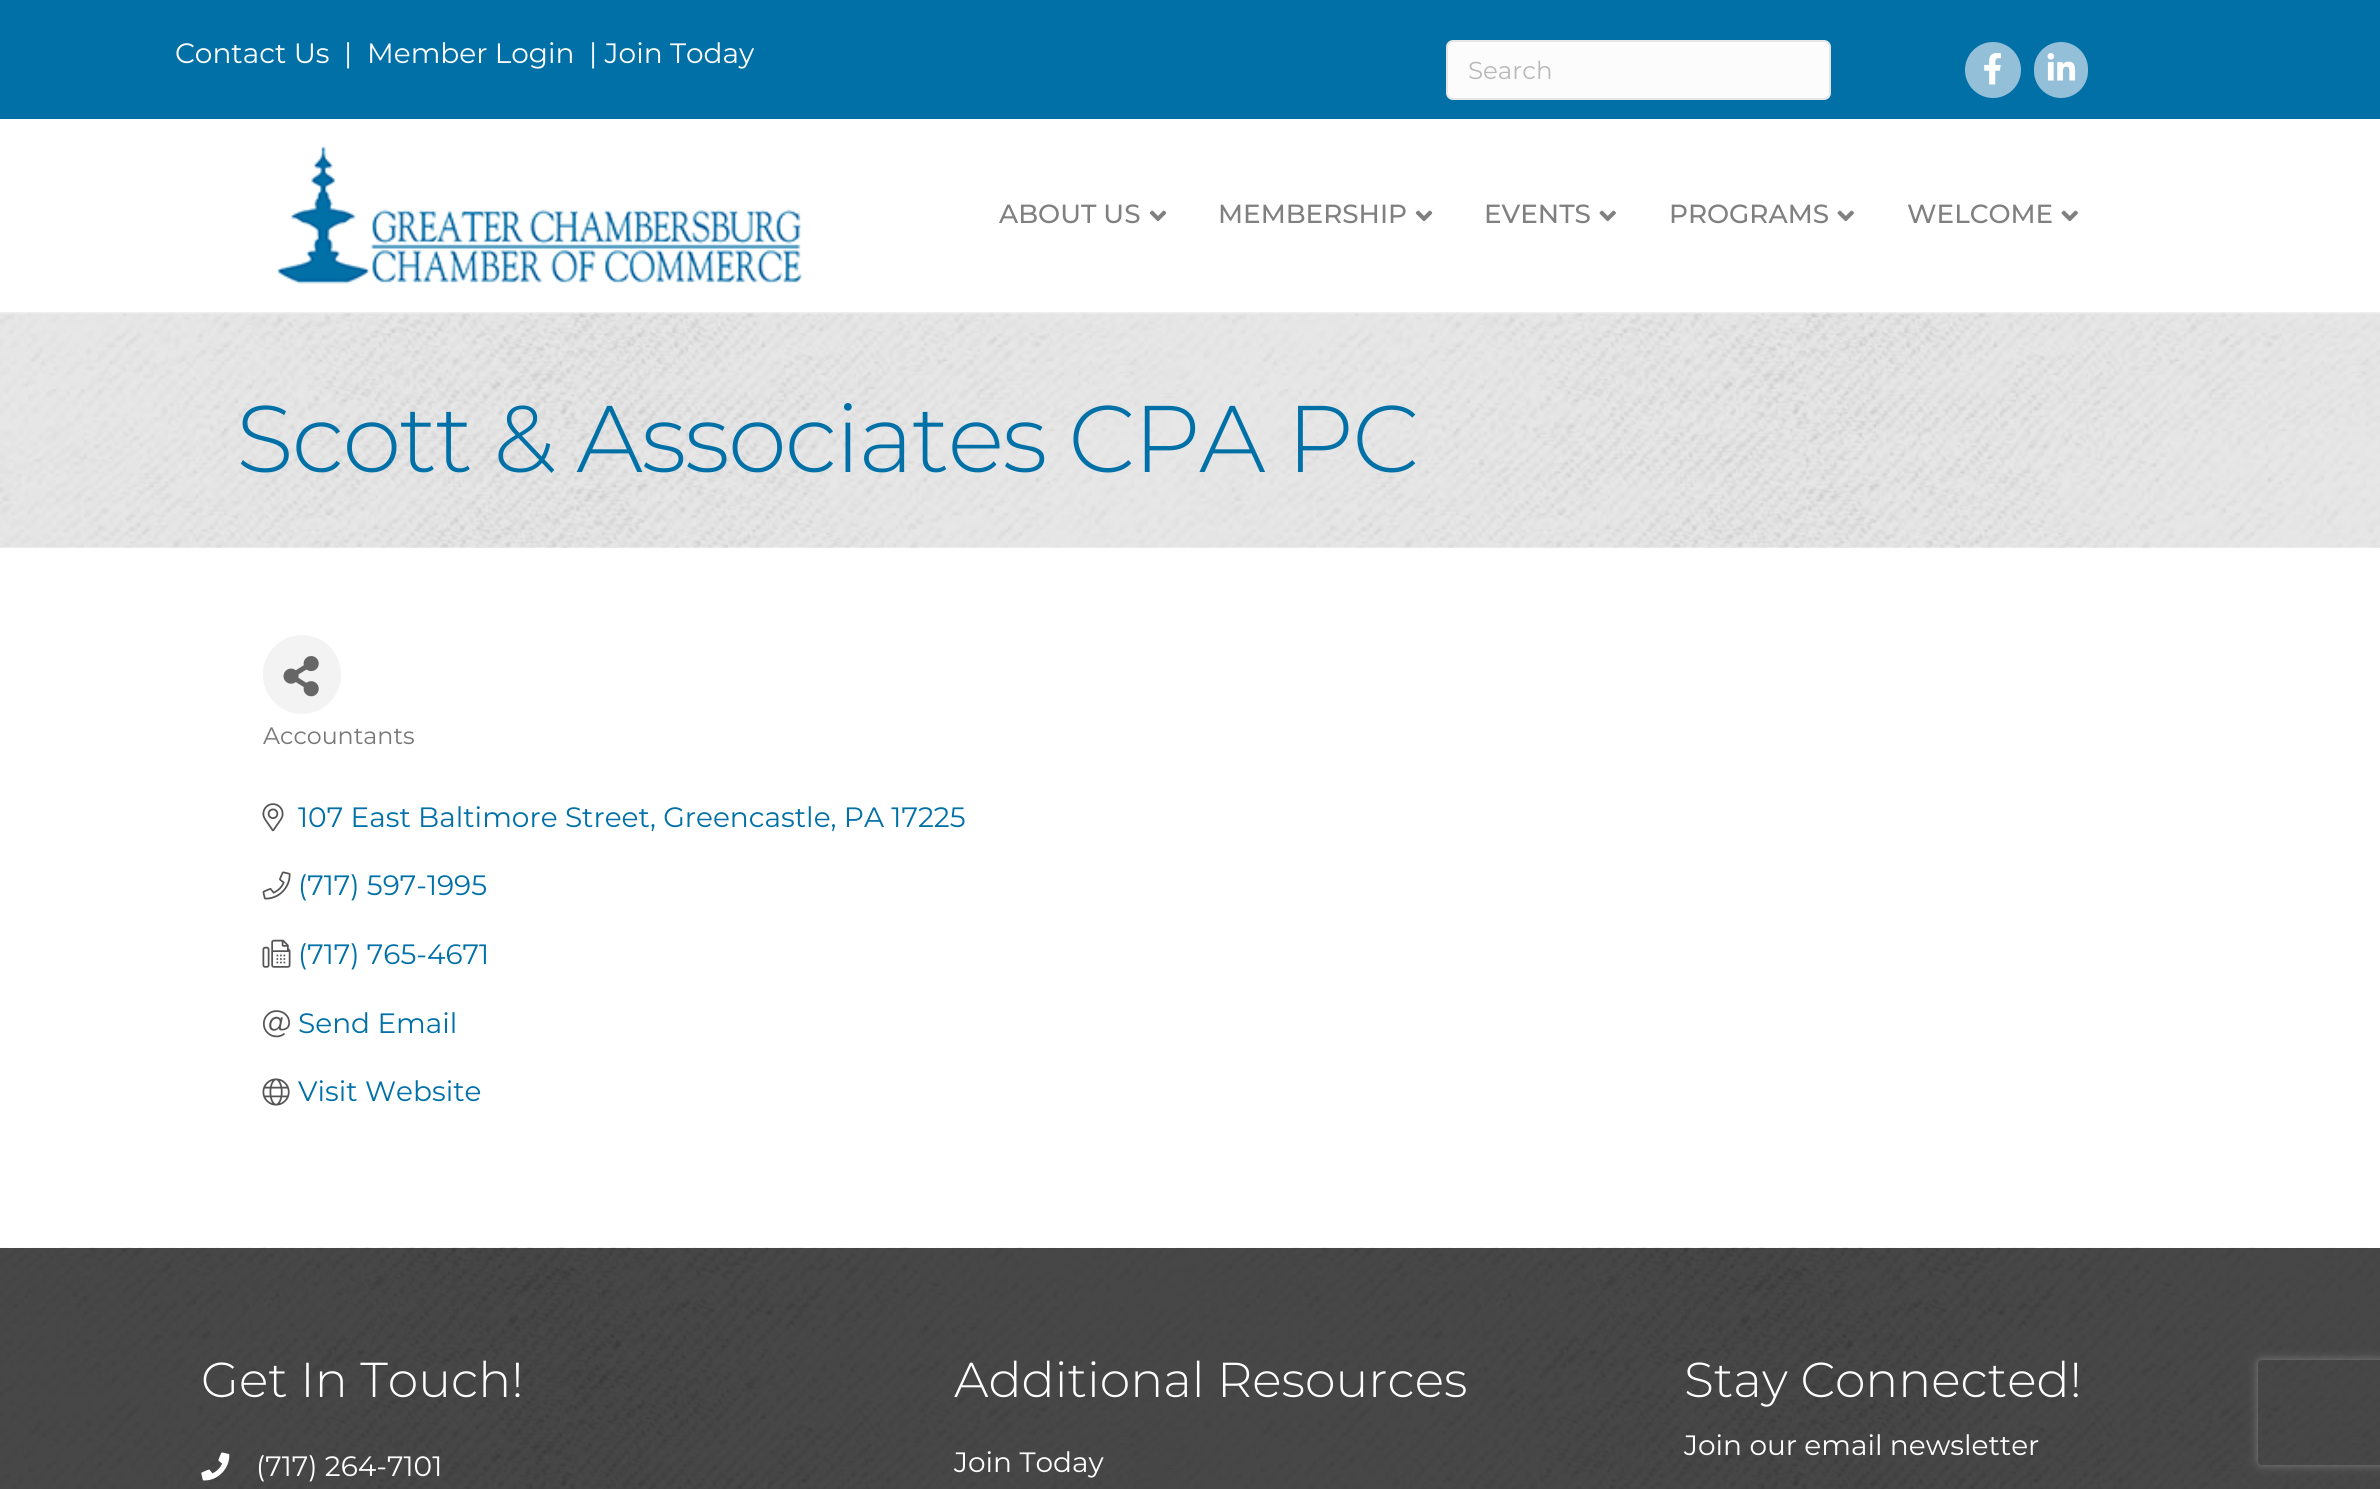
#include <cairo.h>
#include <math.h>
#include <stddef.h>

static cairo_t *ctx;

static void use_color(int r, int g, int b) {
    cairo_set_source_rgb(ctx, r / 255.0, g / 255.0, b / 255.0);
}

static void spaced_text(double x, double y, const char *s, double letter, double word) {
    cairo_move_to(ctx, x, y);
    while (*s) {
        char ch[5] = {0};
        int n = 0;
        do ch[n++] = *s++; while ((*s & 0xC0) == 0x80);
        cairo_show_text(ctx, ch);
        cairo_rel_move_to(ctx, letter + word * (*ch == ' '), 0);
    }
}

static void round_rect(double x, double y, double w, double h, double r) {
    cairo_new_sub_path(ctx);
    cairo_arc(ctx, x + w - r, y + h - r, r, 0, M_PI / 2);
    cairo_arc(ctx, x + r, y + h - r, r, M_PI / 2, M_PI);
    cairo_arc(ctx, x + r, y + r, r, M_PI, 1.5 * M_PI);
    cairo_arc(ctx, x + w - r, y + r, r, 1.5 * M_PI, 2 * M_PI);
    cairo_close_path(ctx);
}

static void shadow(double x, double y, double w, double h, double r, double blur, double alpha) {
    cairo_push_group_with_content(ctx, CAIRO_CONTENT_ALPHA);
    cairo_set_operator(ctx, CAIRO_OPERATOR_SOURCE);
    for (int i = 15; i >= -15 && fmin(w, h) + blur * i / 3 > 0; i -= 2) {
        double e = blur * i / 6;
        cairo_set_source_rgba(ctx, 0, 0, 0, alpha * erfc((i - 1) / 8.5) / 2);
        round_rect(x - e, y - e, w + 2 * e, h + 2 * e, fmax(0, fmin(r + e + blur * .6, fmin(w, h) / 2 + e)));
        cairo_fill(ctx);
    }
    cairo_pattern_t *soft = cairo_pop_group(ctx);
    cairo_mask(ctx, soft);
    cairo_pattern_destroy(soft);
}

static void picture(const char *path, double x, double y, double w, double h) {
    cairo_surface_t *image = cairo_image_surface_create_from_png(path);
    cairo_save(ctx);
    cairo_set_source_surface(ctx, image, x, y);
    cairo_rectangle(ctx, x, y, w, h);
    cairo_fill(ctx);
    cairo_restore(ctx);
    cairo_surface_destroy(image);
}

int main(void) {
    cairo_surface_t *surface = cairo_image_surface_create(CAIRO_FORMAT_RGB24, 2380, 1489);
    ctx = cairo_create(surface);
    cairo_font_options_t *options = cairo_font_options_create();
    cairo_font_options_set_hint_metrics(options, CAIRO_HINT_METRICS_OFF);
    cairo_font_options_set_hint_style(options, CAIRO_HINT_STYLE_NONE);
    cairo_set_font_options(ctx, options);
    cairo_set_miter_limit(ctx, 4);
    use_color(255, 255, 255);
    cairo_paint(ctx);
    use_color(0, 112, 167);
    cairo_rectangle(ctx, 0, 0, 2380, 119);
    cairo_fill(ctx);
    cairo_select_font_face(ctx, "Montserrat", CAIRO_FONT_SLANT_NORMAL, CAIRO_FONT_WEIGHT_NORMAL);
    cairo_set_font_size(ctx, 28);
    use_color(255, 255, 255);
    cairo_move_to(ctx, 175, 63);
    cairo_show_text(ctx, "Contact Us");
    cairo_move_to(ctx, 344, 63);
    cairo_show_text(ctx, "|");
    cairo_move_to(ctx, 367, 63);
    cairo_show_text(ctx, "Member Login");
    cairo_move_to(ctx, 589, 63);
    cairo_show_text(ctx, "| Join Today");
    use_color(252, 252, 252);
    round_rect(1447, 41, 383, 58, 6);
    cairo_fill_preserve(ctx);
    use_color(230, 230, 230);
    cairo_stroke(ctx);
    cairo_set_font_size(ctx, 24.5);
    use_color(185, 185, 185);
    cairo_move_to(ctx, 1468, 79);
    cairo_show_text(ctx, "Search");
    use_color(148, 191, 217);
    cairo_new_path(ctx);
    cairo_arc(ctx, 1993, 70, 28, 0, 2 * M_PI);
    cairo_fill(ctx);
    picture("img1.png", 1984, 52, 17, 33);
    round_rect(2034, 42, 54, 56, 27);
    cairo_fill(ctx);
    picture("img2.png", 2047, 53, 29, 28);
    use_color(238, 238, 238);
    cairo_rectangle(ctx, 0, 312, 2380, 1);
    cairo_fill(ctx);
    picture("img3.png", 277, 146, 525, 138);
    cairo_select_font_face(ctx, "Montserrat Medium", CAIRO_FONT_SLANT_NORMAL, CAIRO_FONT_WEIGHT_NORMAL);
    cairo_set_font_size(ctx, 26.25);
    use_color(128, 128, 128);
    cairo_move_to(ctx, 999, 223);
    cairo_show_text(ctx, "ABOUT US");
    picture("img4.png", 1149, 210, 18, 12);
    cairo_move_to(ctx, 1218, 223);
    cairo_show_text(ctx, "MEMBERSHIP");
    picture("img4.png", 1415, 210, 18, 12);
    cairo_move_to(ctx, 1484, 223);
    cairo_show_text(ctx, "EVENTS");
    picture("img5.png", 1599, 210, 17, 12);
    cairo_move_to(ctx, 1669, 223);
    cairo_show_text(ctx, "PROGRAMS");
    picture("img5.png", 1837, 210, 17, 12);
    cairo_move_to(ctx, 1907, 223);
    cairo_show_text(ctx, "WELCOME");
    picture("img5.png", 2061, 210, 17, 12);
    picture("img6.png", 0, 313, 2380, 235);
    cairo_select_font_face(ctx, "Montserrat Light", CAIRO_FONT_SLANT_NORMAL, CAIRO_FONT_WEIGHT_NORMAL);
    cairo_set_font_size(ctx, 94.5);
    use_color(0, 112, 167);
    spaced_text(236, 472, "Scott & Associates CPA PC", -1.75, 0);
    use_color(243, 243, 243);
    round_rect(263, 635, 78, 79, 39);
    cairo_fill(ctx);
    picture("img7.png", 283, 656, 36, 41);
    cairo_select_font_face(ctx, "Montserrat", CAIRO_FONT_SLANT_NORMAL, CAIRO_FONT_WEIGHT_NORMAL);
    cairo_set_font_size(ctx, 23.75);
    use_color(119, 119, 119);
    cairo_move_to(ctx, 263, 744);
    cairo_show_text(ctx, "Accountants");
    picture("img8.png", 262, 803, 22, 29);
    cairo_set_font_size(ctx, 28);
    use_color(0, 112, 167);
    cairo_move_to(ctx, 298, 827);
    cairo_show_text(ctx, "107 East Baltimore Street, Greencastle, PA 17225");
    picture("img9.png", 262, 871, 29, 29);
    cairo_move_to(ctx, 298, 895);
    cairo_show_text(ctx, "(717) 597-1995");
    picture("img10.png", 262, 939, 29, 29);
    cairo_move_to(ctx, 298, 964);
    cairo_show_text(ctx, "(717) 765-4671");
    picture("img11.png", 262, 1010, 29, 28);
    cairo_move_to(ctx, 298, 1033);
    cairo_show_text(ctx, "Send Email");
    picture("img12.png", 262, 1078, 28, 28);
    cairo_move_to(ctx, 298, 1101);
    cairo_show_text(ctx, "Visit Website");
    picture("img13.png", 0, 1247, 2380, 242);
    cairo_select_font_face(ctx, "Montserrat Light", CAIRO_FONT_SLANT_NORMAL, CAIRO_FONT_WEIGHT_NORMAL);
    cairo_set_font_size(ctx, 49);
    use_color(255, 255, 255);
    cairo_move_to(ctx, 201, 1397);
    cairo_show_text(ctx, "Get In Touch!");
    picture("img14.png", 201, 1452, 29, 29);
    cairo_select_font_face(ctx, "Montserrat", CAIRO_FONT_SLANT_NORMAL, CAIRO_FONT_WEIGHT_NORMAL);
    cairo_set_font_size(ctx, 28);
    cairo_move_to(ctx, 256, 1476);
    cairo_show_text(ctx, "(717) 264-7101");
    cairo_select_font_face(ctx, "Montserrat Light", CAIRO_FONT_SLANT_NORMAL, CAIRO_FONT_WEIGHT_NORMAL);
    cairo_set_font_size(ctx, 49);
    cairo_move_to(ctx, 954, 1397);
    cairo_show_text(ctx, "Additional Resources");
    cairo_select_font_face(ctx, "Montserrat", CAIRO_FONT_SLANT_NORMAL, CAIRO_FONT_WEIGHT_NORMAL);
    cairo_set_font_size(ctx, 28);
    cairo_move_to(ctx, 954, 1472);
    cairo_show_text(ctx, "Join Today");
    cairo_select_font_face(ctx, "Montserrat Light", CAIRO_FONT_SLANT_NORMAL, CAIRO_FONT_WEIGHT_NORMAL);
    cairo_set_font_size(ctx, 49);
    cairo_move_to(ctx, 1684, 1397);
    cairo_show_text(ctx, "Stay Connected!");
    cairo_select_font_face(ctx, "Montserrat", CAIRO_FONT_SLANT_NORMAL, CAIRO_FONT_WEIGHT_NORMAL);
    cairo_set_font_size(ctx, 28);
    cairo_move_to(ctx, 1684, 1455);
    cairo_show_text(ctx, "Join our email newsletter");
    cairo_save(ctx);
    cairo_set_fill_rule(ctx, CAIRO_FILL_RULE_EVEN_ODD);
    cairo_new_path(ctx);
    cairo_move_to(ctx, 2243, 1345);
    cairo_line_to(ctx, 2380, 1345);
    cairo_line_to(ctx, 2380, 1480);
    cairo_line_to(ctx, 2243, 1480);
    cairo_close_path(ctx);
    cairo_move_to(ctx, 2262, 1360);
    cairo_line_to(ctx, 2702, 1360);
    cairo_curve_to(ctx, 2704, 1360, 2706, 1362, 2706, 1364);
    cairo_line_to(ctx, 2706, 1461);
    cairo_curve_to(ctx, 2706, 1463, 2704, 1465, 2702, 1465);
    cairo_line_to(ctx, 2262, 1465);
    cairo_curve_to(ctx, 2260, 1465, 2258, 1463, 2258, 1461);
    cairo_line_to(ctx, 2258, 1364);
    cairo_curve_to(ctx, 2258, 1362, 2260, 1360, 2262, 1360);
    cairo_close_path(ctx);
    cairo_clip(ctx);
    use_color(128, 128, 128);
    shadow(2258, 1360, 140, 105, 4, 4.5, 1);
    cairo_restore(ctx);
    cairo_surface_write_to_png(surface, "result.png");
    cairo_font_options_destroy(options);
    cairo_destroy(ctx);
    cairo_surface_destroy(surface);
    return 0;
}
